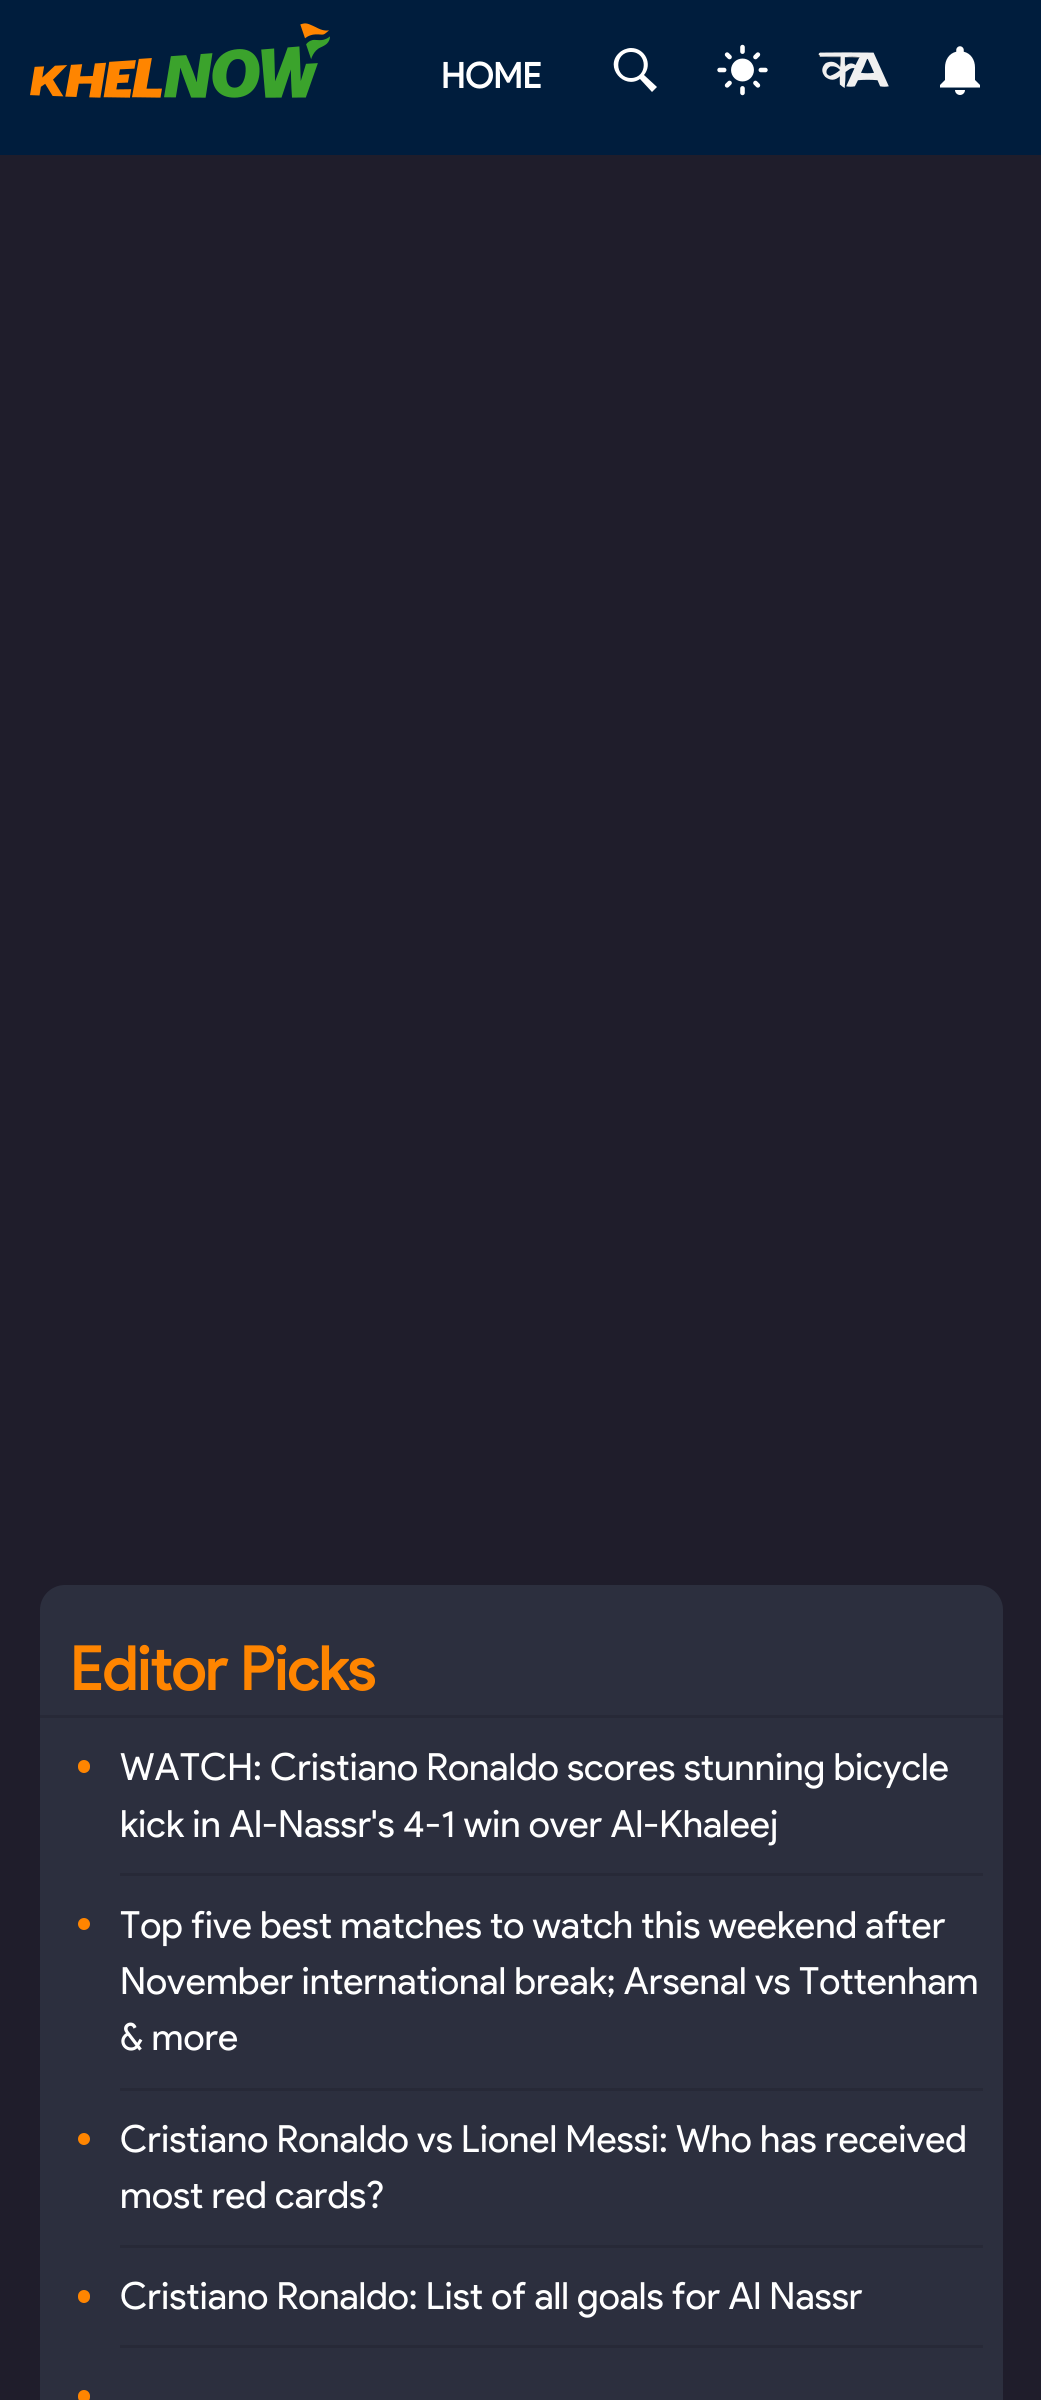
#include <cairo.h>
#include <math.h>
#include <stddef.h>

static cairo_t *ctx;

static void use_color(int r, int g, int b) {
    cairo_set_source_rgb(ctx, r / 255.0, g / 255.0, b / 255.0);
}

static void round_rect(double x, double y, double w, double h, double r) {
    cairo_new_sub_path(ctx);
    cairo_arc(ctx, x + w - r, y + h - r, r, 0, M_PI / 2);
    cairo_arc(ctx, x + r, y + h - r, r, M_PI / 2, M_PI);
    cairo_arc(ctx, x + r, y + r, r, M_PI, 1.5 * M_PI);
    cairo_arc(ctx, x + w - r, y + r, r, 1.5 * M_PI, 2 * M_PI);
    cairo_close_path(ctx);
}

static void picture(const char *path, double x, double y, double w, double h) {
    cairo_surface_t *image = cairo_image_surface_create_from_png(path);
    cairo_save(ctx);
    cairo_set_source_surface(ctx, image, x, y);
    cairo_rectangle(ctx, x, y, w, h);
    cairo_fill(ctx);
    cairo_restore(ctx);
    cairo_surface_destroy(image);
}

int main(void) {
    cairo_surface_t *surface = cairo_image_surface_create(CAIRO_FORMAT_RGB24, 1041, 2400);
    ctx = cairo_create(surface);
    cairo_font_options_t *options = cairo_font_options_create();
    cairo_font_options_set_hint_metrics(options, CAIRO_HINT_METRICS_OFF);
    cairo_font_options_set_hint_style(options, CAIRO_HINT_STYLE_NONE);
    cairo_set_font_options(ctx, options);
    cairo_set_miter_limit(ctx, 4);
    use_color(31, 29, 43);
    cairo_paint(ctx);
    use_color(0, 29, 61);
    cairo_rectangle(ctx, 0, 0, 1041, 155);
    cairo_fill(ctx);
    picture("img1.png", 30, 23, 300, 75);
    cairo_select_font_face(ctx, "Product Sans", CAIRO_FONT_SLANT_NORMAL, CAIRO_FONT_WEIGHT_BOLD);
    cairo_set_font_size(ctx, 35);
    use_color(255, 255, 255);
    cairo_move_to(ctx, 441, 88);
    cairo_show_text(ctx, "HOME");
    cairo_new_path(ctx);
    cairo_move_to(ctx, 631, 48);
    cairo_curve_to(ctx, 627, 48, 622, 50, 619, 53);
    cairo_curve_to(ctx, 604, 67, 624, 90, 640, 79);
    cairo_line_to(ctx, 652, 92);
    cairo_line_to(ctx, 657, 87);
    cairo_line_to(ctx, 644, 75);
    cairo_curve_to(ctx, 653, 64, 645, 48, 631, 48);
    cairo_close_path(ctx);
    cairo_move_to(ctx, 631, 52);
    cairo_curve_to(ctx, 648, 52, 648, 78, 631, 78);
    cairo_curve_to(ctx, 614, 78, 614, 52, 631, 52);
    cairo_close_path(ctx);
    cairo_fill(ctx);
    picture("img2.png", 717, 44, 51, 52);
    picture("img3.png", 818, 52, 71, 36);
    picture("img4.png", 940, 46, 40, 49);
    use_color(44, 47, 62);
    round_rect(40, 1585, 963, 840, 25);
    cairo_fill(ctx);
    cairo_set_font_size(ctx, 60);
    use_color(255, 133, 0);
    cairo_move_to(ctx, 70, 1690);
    cairo_show_text(ctx, "Editor Picks");
    use_color(39, 41, 55);
    cairo_rectangle(ctx, 40, 1715, 963, 3);
    cairo_fill(ctx);
    use_color(255, 133, 0);
    round_rect(78, 1760, 12, 13, 6);
    cairo_fill(ctx);
    cairo_select_font_face(ctx, "Product Sans", CAIRO_FONT_SLANT_NORMAL, CAIRO_FONT_WEIGHT_NORMAL);
    cairo_set_font_size(ctx, 37.5);
    use_color(255, 255, 255);
    cairo_move_to(ctx, 120, 1780);
    cairo_show_text(ctx, "WATCH: Cristiano Ronaldo scores stunning bicycle");
    cairo_move_to(ctx, 120, 1837);
    cairo_show_text(ctx, "kick in Al-Nassr's 4-1 win over Al-Khaleej");
    use_color(39, 41, 55);
    cairo_rectangle(ctx, 120, 1873, 863, 3);
    cairo_fill(ctx);
    use_color(255, 133, 0);
    cairo_arc(ctx, 84, 1924, 6, 0, 2 * M_PI);
    cairo_fill(ctx);
    use_color(255, 255, 255);
    cairo_move_to(ctx, 120, 1938);
    cairo_show_text(ctx, "Top five best matches to watch this weekend after");
    cairo_move_to(ctx, 120, 1994);
    cairo_show_text(ctx, "November international break; Arsenal vs Tottenham");
    cairo_move_to(ctx, 120, 2050);
    cairo_show_text(ctx, "& more");
    use_color(39, 41, 55);
    cairo_rectangle(ctx, 120, 2088, 863, 3);
    cairo_fill(ctx);
    use_color(255, 133, 0);
    cairo_arc(ctx, 84, 2139, 6, 0, 2 * M_PI);
    cairo_fill(ctx);
    use_color(255, 255, 255);
    cairo_move_to(ctx, 120, 2152);
    cairo_show_text(ctx, "Cristiano Ronaldo vs Lionel Messi: Who has received");
    cairo_move_to(ctx, 120, 2208);
    cairo_show_text(ctx, "most red cards?");
    use_color(39, 41, 55);
    cairo_rectangle(ctx, 120, 2245, 863, 3);
    cairo_fill(ctx);
    use_color(255, 133, 0);
    round_rect(78, 2290, 12, 13, 6);
    cairo_fill(ctx);
    use_color(255, 255, 255);
    cairo_move_to(ctx, 120, 2309);
    cairo_show_text(ctx, "Cristiano Ronaldo: List of all goals for Al Nassr");
    use_color(39, 41, 55);
    cairo_rectangle(ctx, 120, 2345, 863, 3);
    cairo_fill(ctx);
    use_color(255, 133, 0);
    round_rect(78, 2390, 12, 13, 6);
    cairo_fill(ctx);
    cairo_surface_write_to_png(surface, "result.png");
    cairo_font_options_destroy(options);
    cairo_destroy(ctx);
    cairo_surface_destroy(surface);
    return 0;
}
